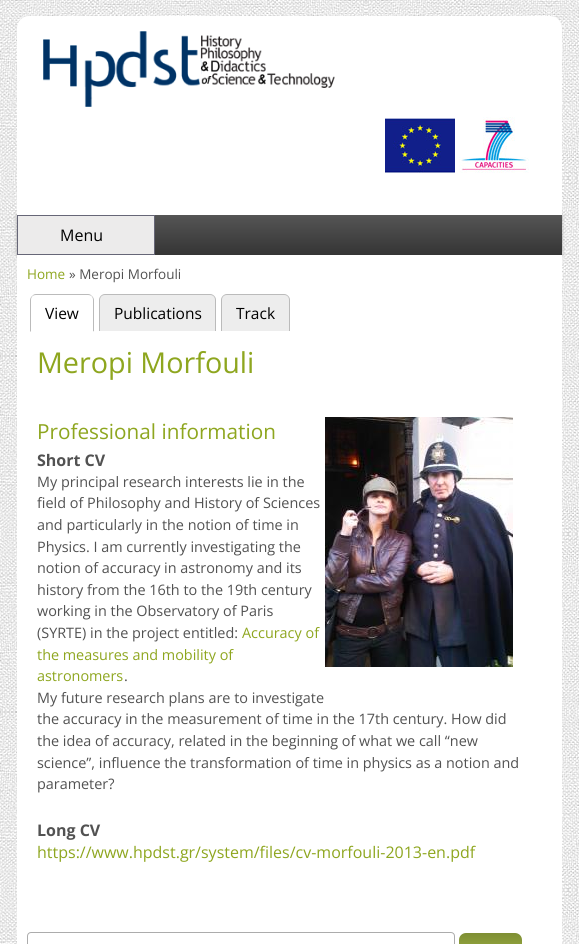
#include <cairo.h>
#include <math.h>
#include <stddef.h>

static cairo_t *ctx;

static void use_color(int r, int g, int b) {
    cairo_set_source_rgb(ctx, r / 255.0, g / 255.0, b / 255.0);
}

static void round_rect(double x, double y, double w, double h, double r) {
    cairo_new_sub_path(ctx);
    cairo_arc(ctx, x + w - r, y + h - r, r, 0, M_PI / 2);
    cairo_arc(ctx, x + r, y + h - r, r, M_PI / 2, M_PI);
    cairo_arc(ctx, x + r, y + r, r, M_PI, 1.5 * M_PI);
    cairo_arc(ctx, x + w - r, y + r, r, 1.5 * M_PI, 2 * M_PI);
    cairo_close_path(ctx);
}

static void shadow(double x, double y, double w, double h, double r, double blur, double alpha) {
    cairo_push_group_with_content(ctx, CAIRO_CONTENT_ALPHA);
    cairo_set_operator(ctx, CAIRO_OPERATOR_SOURCE);
    for (int i = 15; i >= -15 && fmin(w, h) + blur * i / 3 > 0; i -= 2) {
        double e = blur * i / 6;
        cairo_set_source_rgba(ctx, 0, 0, 0, alpha * erfc((i - 1) / 8.5) / 2);
        round_rect(x - e, y - e, w + 2 * e, h + 2 * e, fmax(0, fmin(r + e + blur * .6, fmin(w, h) / 2 + e)));
        cairo_fill(ctx);
    }
    cairo_pattern_t *soft = cairo_pop_group(ctx);
    cairo_mask(ctx, soft);
    cairo_pattern_destroy(soft);
}

static void picture(const char *path, double x, double y, double w, double h) {
    cairo_surface_t *image = cairo_image_surface_create_from_png(path);
    cairo_save(ctx);
    cairo_set_source_surface(ctx, image, x, y);
    cairo_rectangle(ctx, x, y, w, h);
    cairo_fill(ctx);
    cairo_restore(ctx);
    cairo_surface_destroy(image);
}

int main(void) {
    cairo_surface_t *surface = cairo_image_surface_create(CAIRO_FORMAT_RGB24, 579, 944);
    ctx = cairo_create(surface);
    cairo_font_options_t *options = cairo_font_options_create();
    cairo_font_options_set_hint_metrics(options, CAIRO_HINT_METRICS_OFF);
    cairo_font_options_set_hint_style(options, CAIRO_HINT_STYLE_NONE);
    cairo_set_font_options(ctx, options);
    cairo_set_miter_limit(ctx, 4);
    cairo_pattern_t *gradient;
    use_color(255, 255, 255);
    cairo_paint(ctx);
    picture("img1.png", 0, 0, 579, 944);
    use_color(153, 153, 153);
    shadow(17, 215, 545, 40, 0, 1.5, 1);
    use_color(255, 255, 255);
    cairo_new_path(ctx);
    cairo_move_to(ctx, 29, 16);
    cairo_line_to(ctx, 550, 16);
    cairo_curve_to(ctx, 556.5, 16, 562, 21.5, 562, 28);
    cairo_line_to(ctx, 562, 215);
    cairo_line_to(ctx, 17, 215);
    cairo_line_to(ctx, 17, 28);
    cairo_curve_to(ctx, 17, 21.5, 22.5, 16, 29, 16);
    cairo_close_path(ctx);
    cairo_fill(ctx);
    picture("img2.png", 43, 31, 292, 76);
    picture("img3.png", 385, 118, 70, 55);
    picture("img4.png", 459, 117, 70, 56);
    gradient = cairo_pattern_create_linear(290, 215, 290, 257);
    cairo_pattern_add_color_stop_rgba(gradient, 0, 0.333, 0.333, 0.333, 1);
    cairo_pattern_add_color_stop_rgba(gradient, 1, 0.2, 0.2, 0.2, 1);
    cairo_set_source(ctx, gradient);
    cairo_pattern_destroy(gradient);
    cairo_rectangle(ctx, 155, 215, 407, 40);
    cairo_fill(ctx);
    use_color(236, 235, 235);
    cairo_rectangle(ctx, 17.5, 215.5, 137, 39);
    cairo_fill_preserve(ctx);
    use_color(102, 102, 119);
    cairo_set_line_width(ctx, 1);
    cairo_stroke(ctx);
    cairo_select_font_face(ctx, "Open Sans", CAIRO_FONT_SLANT_NORMAL, CAIRO_FONT_WEIGHT_NORMAL);
    cairo_set_font_size(ctx, 16);
    use_color(0, 0, 0);
    cairo_move_to(ctx, 60, 241);
    cairo_show_text(ctx, "Menu");
    use_color(255, 255, 255);
    cairo_rectangle(ctx, 17, 255, 545, 689);
    cairo_fill(ctx);
    cairo_set_font_size(ctx, 13.5);
    use_color(142, 166, 31);
    cairo_move_to(ctx, 27, 279);
    cairo_show_text(ctx, "Home");
    use_color(82, 82, 82);
    cairo_move_to(ctx, 69, 279);
    cairo_show_text(ctx, "» Meropi Morfouli");
    use_color(187, 187, 187);
    cairo_new_path(ctx);
    cairo_move_to(ctx, 36, 294);
    cairo_curve_to(ctx, 34, 294, 33, 295, 32, 296);
    cairo_curve_to(ctx, 33, 296, 34, 295, 36, 295);
    cairo_line_to(ctx, 88, 295);
    cairo_curve_to(ctx, 90, 295, 91, 296, 92, 296);
    cairo_curve_to(ctx, 91, 295, 90, 294, 88, 294);
    cairo_close_path(ctx);
    cairo_move_to(ctx, 94, 332);
    cairo_line_to(ctx, 94, 300);
    cairo_curve_to(ctx, 94, 298.5, 93, 297, 92, 296);
    cairo_line_to(ctx, 91.5, 296.5);
    cairo_curve_to(ctx, 92.5, 297, 93, 298.5, 93, 300);
    cairo_line_to(ctx, 93, 331);
    cairo_close_path(ctx);
    cairo_fill(ctx);
    use_color(255, 255, 255);
    cairo_new_path(ctx);
    cairo_move_to(ctx, 94, 332);
    cairo_line_to(ctx, 93, 331);
    cairo_line_to(ctx, 31, 331);
    cairo_line_to(ctx, 30, 332);
    cairo_close_path(ctx);
    cairo_fill(ctx);
    use_color(187, 187, 187);
    cairo_new_path(ctx);
    cairo_move_to(ctx, 30, 332);
    cairo_line_to(ctx, 31, 331);
    cairo_line_to(ctx, 31, 300);
    cairo_curve_to(ctx, 31, 298.5, 31.5, 297, 32.5, 296.5);
    cairo_line_to(ctx, 32, 296);
    cairo_curve_to(ctx, 31, 297, 30, 298.5, 30, 300);
    cairo_close_path(ctx);
    cairo_fill(ctx);
    cairo_set_font_size(ctx, 15.5);
    use_color(0, 0, 0);
    cairo_move_to(ctx, 45, 319);
    cairo_show_text(ctx, "View");
    use_color(237, 237, 237);
    cairo_new_path(ctx);
    cairo_move_to(ctx, 105, 294);
    cairo_line_to(ctx, 210, 294);
    cairo_curve_to(ctx, 213.5, 294, 216, 296.5, 216, 300);
    cairo_line_to(ctx, 216, 331);
    cairo_line_to(ctx, 99, 331);
    cairo_line_to(ctx, 99, 300);
    cairo_curve_to(ctx, 99, 296.5, 101.5, 294, 105, 294);
    cairo_close_path(ctx);
    cairo_fill(ctx);
    use_color(187, 187, 187);
    cairo_set_fill_rule(ctx, CAIRO_FILL_RULE_EVEN_ODD);
    cairo_new_path(ctx);
    cairo_move_to(ctx, 105, 294);
    cairo_line_to(ctx, 210, 294);
    cairo_curve_to(ctx, 213, 294, 216, 297, 216, 300);
    cairo_line_to(ctx, 216, 331);
    cairo_line_to(ctx, 99, 331);
    cairo_line_to(ctx, 99, 300);
    cairo_curve_to(ctx, 99, 297, 102, 294, 105, 294);
    cairo_close_path(ctx);
    cairo_move_to(ctx, 105, 295);
    cairo_line_to(ctx, 210, 295);
    cairo_curve_to(ctx, 213, 295, 215, 297, 215, 300);
    cairo_line_to(ctx, 215, 331);
    cairo_line_to(ctx, 100, 331);
    cairo_line_to(ctx, 100, 300);
    cairo_curve_to(ctx, 100, 297, 102, 295, 105, 295);
    cairo_close_path(ctx);
    cairo_fill(ctx);
    use_color(0, 0, 0);
    cairo_move_to(ctx, 114, 319);
    cairo_show_text(ctx, "Publications");
    use_color(237, 237, 237);
    cairo_new_path(ctx);
    cairo_move_to(ctx, 227, 294);
    cairo_line_to(ctx, 284, 294);
    cairo_curve_to(ctx, 287.5, 294, 290, 296.5, 290, 300);
    cairo_line_to(ctx, 290, 331);
    cairo_line_to(ctx, 221, 331);
    cairo_line_to(ctx, 221, 300);
    cairo_curve_to(ctx, 221, 296.5, 223.5, 294, 227, 294);
    cairo_close_path(ctx);
    cairo_fill(ctx);
    use_color(187, 187, 187);
    cairo_new_path(ctx);
    cairo_move_to(ctx, 227, 294);
    cairo_line_to(ctx, 284, 294);
    cairo_curve_to(ctx, 287, 294, 290, 297, 290, 300);
    cairo_line_to(ctx, 290, 331);
    cairo_line_to(ctx, 221, 331);
    cairo_line_to(ctx, 221, 300);
    cairo_curve_to(ctx, 221, 297, 224, 294, 227, 294);
    cairo_close_path(ctx);
    cairo_move_to(ctx, 227, 295);
    cairo_line_to(ctx, 284, 295);
    cairo_curve_to(ctx, 287, 295, 289, 297, 289, 300);
    cairo_line_to(ctx, 289, 331);
    cairo_line_to(ctx, 222, 331);
    cairo_line_to(ctx, 222, 300);
    cairo_curve_to(ctx, 222, 297, 224, 295, 227, 295);
    cairo_close_path(ctx);
    cairo_fill(ctx);
    use_color(0, 0, 0);
    cairo_move_to(ctx, 236, 319);
    cairo_show_text(ctx, "Track");
    cairo_set_font_size(ctx, 28.75);
    use_color(142, 166, 31);
    cairo_move_to(ctx, 37, 373);
    cairo_show_text(ctx, "Meropi Morfouli");
    cairo_set_font_size(ctx, 20.75);
    cairo_move_to(ctx, 37, 439);
    cairo_show_text(ctx, "Professional information");
    picture("img5.png", 325, 417, 188, 250);
    cairo_select_font_face(ctx, "Open Sans", CAIRO_FONT_SLANT_NORMAL, CAIRO_FONT_WEIGHT_BOLD);
    cairo_set_font_size(ctx, 16);
    use_color(82, 82, 82);
    cairo_move_to(ctx, 37, 466);
    cairo_show_text(ctx, "Short CV");
    cairo_select_font_face(ctx, "Open Sans", CAIRO_FONT_SLANT_NORMAL, CAIRO_FONT_WEIGHT_NORMAL);
    cairo_set_font_size(ctx, 14.4);
    cairo_move_to(ctx, 37, 487);
    cairo_show_text(ctx, "My principal research interests lie in the");
    cairo_move_to(ctx, 37, 508);
    cairo_show_text(ctx, "field of Philosophy and History of Sciences");
    cairo_move_to(ctx, 37, 530);
    cairo_show_text(ctx, "and particularly in the notion of time in");
    cairo_move_to(ctx, 37, 552);
    cairo_show_text(ctx, "Physics. I am currently investigating the");
    cairo_move_to(ctx, 37, 573);
    cairo_show_text(ctx, "notion of accuracy in astronomy and its");
    cairo_move_to(ctx, 37, 595);
    cairo_show_text(ctx, "history from the 16th to the 19th century");
    cairo_move_to(ctx, 37, 616);
    cairo_show_text(ctx, "working in the Observatory of Paris");
    cairo_move_to(ctx, 37, 638);
    cairo_show_text(ctx, "(SYRTE) in the project entitled:");
    use_color(142, 166, 31);
    cairo_move_to(ctx, 242, 638);
    cairo_show_text(ctx, "Accuracy of");
    cairo_move_to(ctx, 37, 660);
    cairo_show_text(ctx, "the measures and mobility of");
    cairo_move_to(ctx, 37, 681);
    cairo_show_text(ctx, "astronomers");
    use_color(82, 82, 82);
    cairo_move_to(ctx, 124, 681);
    cairo_show_text(ctx, ".");
    cairo_move_to(ctx, 37, 703);
    cairo_show_text(ctx, "My future research plans are to investigate");
    cairo_move_to(ctx, 37, 724);
    cairo_show_text(ctx, "the accuracy in the measurement of time in the 17th century. How did");
    cairo_move_to(ctx, 37, 746);
    cairo_show_text(ctx, "the idea of accuracy, related in the beginning of what we call “new");
    cairo_move_to(ctx, 37, 768);
    cairo_show_text(ctx, "science”, influence the transformation of time in physics as a notion and");
    cairo_move_to(ctx, 37, 789);
    cairo_show_text(ctx, "parameter?");
    cairo_select_font_face(ctx, "Open Sans", CAIRO_FONT_SLANT_NORMAL, CAIRO_FONT_WEIGHT_BOLD);
    cairo_set_font_size(ctx, 16);
    cairo_move_to(ctx, 37, 836);
    cairo_show_text(ctx, "Long CV");
    cairo_select_font_face(ctx, "Open Sans", CAIRO_FONT_SLANT_NORMAL, CAIRO_FONT_WEIGHT_NORMAL);
    use_color(142, 166, 31);
    cairo_move_to(ctx, 37, 858);
    cairo_show_text(ctx, "https://www.hpdst.gr/system/files/cv-morfouli-2013-en.pdf");
    round_rect(27.5, 932.5, 427, 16, 3.5);
    use_color(172, 172, 172);
    cairo_stroke(ctx);
    gradient = cairo_pattern_create_linear(491, 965, 491, 933);
    cairo_pattern_add_color_stop_rgba(gradient, 0, 0.651, 0.733, 0.278, 1);
    cairo_pattern_add_color_stop_rgba(gradient, 1, 0.494, 0.557, 0.204, 1);
    cairo_set_source(ctx, gradient);
    cairo_pattern_destroy(gradient);
    round_rect(459, 933, 63, 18, 7);
    cairo_fill(ctx);
    cairo_surface_write_to_png(surface, "result.png");
    cairo_font_options_destroy(options);
    cairo_destroy(ctx);
    cairo_surface_destroy(surface);
    return 0;
}
